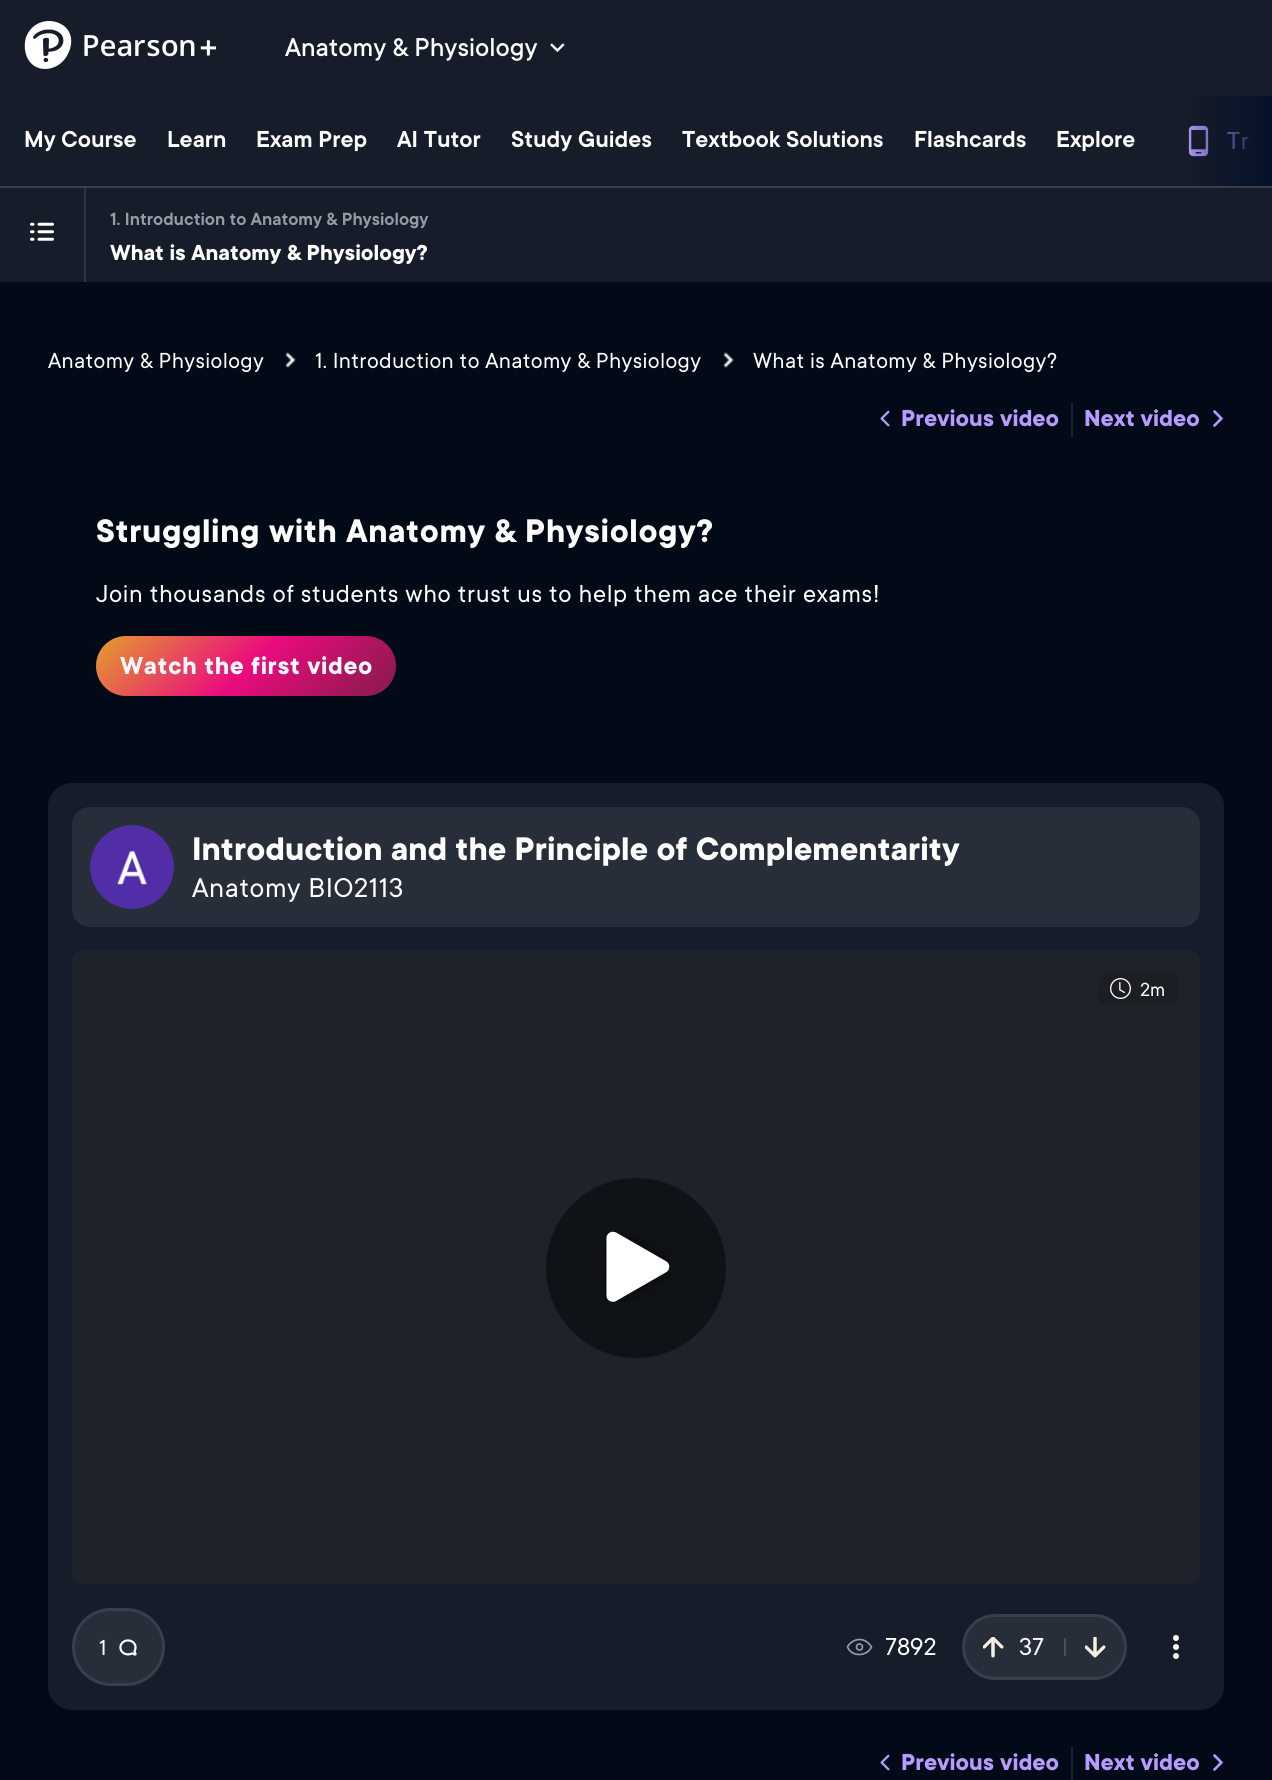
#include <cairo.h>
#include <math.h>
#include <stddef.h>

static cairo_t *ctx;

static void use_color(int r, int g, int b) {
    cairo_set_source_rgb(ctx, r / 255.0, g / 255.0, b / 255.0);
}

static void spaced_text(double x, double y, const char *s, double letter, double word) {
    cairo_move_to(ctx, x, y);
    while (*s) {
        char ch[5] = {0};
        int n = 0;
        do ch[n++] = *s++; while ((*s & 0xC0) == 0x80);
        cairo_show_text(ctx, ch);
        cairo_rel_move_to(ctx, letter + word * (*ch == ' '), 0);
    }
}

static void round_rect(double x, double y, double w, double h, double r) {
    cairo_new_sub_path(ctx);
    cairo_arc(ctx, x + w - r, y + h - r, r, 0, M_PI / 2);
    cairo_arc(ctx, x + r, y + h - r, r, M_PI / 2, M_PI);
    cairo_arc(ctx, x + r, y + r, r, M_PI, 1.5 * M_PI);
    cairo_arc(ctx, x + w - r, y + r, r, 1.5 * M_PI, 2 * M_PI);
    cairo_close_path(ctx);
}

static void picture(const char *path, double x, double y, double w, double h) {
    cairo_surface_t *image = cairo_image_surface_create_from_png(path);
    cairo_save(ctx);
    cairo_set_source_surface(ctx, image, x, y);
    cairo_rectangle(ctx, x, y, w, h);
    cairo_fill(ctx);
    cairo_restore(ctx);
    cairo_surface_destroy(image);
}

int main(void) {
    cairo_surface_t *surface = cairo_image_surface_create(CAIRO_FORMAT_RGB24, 1272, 1780);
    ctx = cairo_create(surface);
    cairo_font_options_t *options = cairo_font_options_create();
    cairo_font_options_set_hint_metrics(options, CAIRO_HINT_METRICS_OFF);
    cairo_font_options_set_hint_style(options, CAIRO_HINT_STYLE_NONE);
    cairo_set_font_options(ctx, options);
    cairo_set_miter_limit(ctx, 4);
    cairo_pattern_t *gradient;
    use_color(2, 9, 23);
    cairo_paint(ctx);
    use_color(22, 28, 41);
    cairo_rectangle(ctx, 0, 0, 1272, 96);
    cairo_fill(ctx);
    picture("img1.png", 24, 21, 48, 48);
    picture("img2.png", 84, 35, 132, 22);
    cairo_select_font_face(ctx, "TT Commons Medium", CAIRO_FONT_SLANT_NORMAL, CAIRO_FONT_WEIGHT_NORMAL);
    cairo_set_font_size(ctx, 28.5);
    use_color(254, 254, 254);
    cairo_move_to(ctx, 285, 56);
    cairo_show_text(ctx, "Anatomy & Physiology");
    picture("img3.png", 550, 43, 15, 10);
    use_color(22, 28, 41);
    cairo_rectangle(ctx, 0, 96, 1271, 90);
    cairo_fill(ctx);
    use_color(57, 63, 74);
    cairo_rectangle(ctx, 0, 186, 1272, 2);
    cairo_fill(ctx);
    cairo_select_font_face(ctx, "TT Commons SemiBold", CAIRO_FONT_SLANT_NORMAL, CAIRO_FONT_WEIGHT_NORMAL);
    cairo_set_font_size(ctx, 25.5);
    use_color(254, 254, 254);
    cairo_move_to(ctx, 24, 147);
    cairo_show_text(ctx, "My Course");
    cairo_move_to(ctx, 167, 147);
    cairo_show_text(ctx, "Learn");
    cairo_move_to(ctx, 256, 147);
    cairo_show_text(ctx, "Exam Prep");
    cairo_move_to(ctx, 397, 147);
    cairo_show_text(ctx, "AI Tutor");
    cairo_move_to(ctx, 511, 147);
    cairo_show_text(ctx, "Study Guides");
    cairo_move_to(ctx, 682, 147);
    cairo_show_text(ctx, "Textbook Solutions");
    cairo_move_to(ctx, 914, 147);
    cairo_show_text(ctx, "Flashcards");
    cairo_move_to(ctx, 1056, 147);
    cairo_show_text(ctx, "Explore");
    picture("img4.png", 1188, 125, 21, 32);
    cairo_select_font_face(ctx, "TT Commons", CAIRO_FONT_SLANT_NORMAL, CAIRO_FONT_WEIGHT_NORMAL);
    cairo_set_font_size(ctx, 27);
    use_color(183, 155, 255);
    spaced_text(1227, 149, "Tr", 0.6, 0);
    gradient = cairo_pattern_create_linear(1182, 141, 1272, 141);
    cairo_pattern_add_color_stop_rgba(gradient, 0, 0.02, 0.067, 0.165, 0);
    cairo_pattern_add_color_stop_rgba(gradient, 1, 0.02, 0.067, 0.165, 1);
    cairo_set_source(ctx, gradient);
    cairo_pattern_destroy(gradient);
    cairo_rectangle(ctx, 1188, 96, 84, 90);
    cairo_fill(ctx);
    use_color(22, 28, 41);
    cairo_rectangle(ctx, 0, 188, 1272, 94);
    cairo_fill(ctx);
    picture("img5.png", 30, 222, 24, 19);
    use_color(40, 53, 78);
    cairo_rectangle(ctx, 84, 188, 2, 94);
    cairo_fill(ctx);
    cairo_select_font_face(ctx, "TT Commons SemiBold", CAIRO_FONT_SLANT_NORMAL, CAIRO_FONT_WEIGHT_NORMAL);
    cairo_set_font_size(ctx, 19.5);
    use_color(152, 155, 163);
    cairo_move_to(ctx, 110, 225);
    cairo_show_text(ctx, "1. Introduction to Anatomy & Physiology");
    cairo_select_font_face(ctx, "TT Commons", CAIRO_FONT_SLANT_NORMAL, CAIRO_FONT_WEIGHT_BOLD);
    cairo_set_font_size(ctx, 24);
    use_color(254, 254, 254);
    cairo_move_to(ctx, 110, 260);
    cairo_show_text(ctx, "What is Anatomy & Physiology?");
    cairo_select_font_face(ctx, "TT Commons", CAIRO_FONT_SLANT_NORMAL, CAIRO_FONT_WEIGHT_NORMAL);
    spaced_text(48, 368, "Anatomy & Physiology", 0.35, 0);
    picture("img6.png", 285, 352, 11, 16);
    spaced_text(315, 368, "1. Introduction to Anatomy & Physiology", 0.35, 0);
    picture("img7.png", 723, 352, 11, 16);
    spaced_text(753, 368, "What is Anatomy & Physiology?", 0.35, 0);
    picture("img8.png", 880, 410, 10, 17);
    cairo_select_font_face(ctx, "TT Commons", CAIRO_FONT_SLANT_NORMAL, CAIRO_FONT_WEIGHT_BOLD);
    cairo_set_font_size(ctx, 25.5);
    use_color(183, 155, 255);
    cairo_move_to(ctx, 901, 426);
    cairo_show_text(ctx, "Previous video");
    use_color(27, 34, 46);
    cairo_rectangle(ctx, 1071, 402, 2, 36);
    cairo_fill(ctx);
    use_color(183, 155, 255);
    cairo_move_to(ctx, 1084, 426);
    cairo_show_text(ctx, "Next video");
    picture("img9.png", 1213, 410, 10, 17);
    cairo_set_font_size(ctx, 36);
    use_color(254, 254, 254);
    spaced_text(96, 542, "Struggling with Anatomy & Physiology?", 0.6, 0);
    cairo_select_font_face(ctx, "TT Commons", CAIRO_FONT_SLANT_NORMAL, CAIRO_FONT_WEIGHT_NORMAL);
    cairo_set_font_size(ctx, 27);
    spaced_text(96, 602, "Join thousands of students who trust us to help them ace their exams!", 0.6, 0);
    gradient = cairo_pattern_create_linear(156, 576, 336, 756);
    cairo_pattern_add_color_stop_rgba(gradient, 0, 0.894, 0.616, 0.176, 1);
    cairo_pattern_add_color_stop_rgba(gradient, 0.51, 0.918, 0.043, 0.494, 1);
    cairo_pattern_add_color_stop_rgba(gradient, 1, 0.522, 0.106, 0.29, 1);
    cairo_set_source(ctx, gradient);
    cairo_pattern_destroy(gradient);
    round_rect(96, 636, 300, 60, 30);
    cairo_fill(ctx);
    cairo_select_font_face(ctx, "TT Commons", CAIRO_FONT_SLANT_NORMAL, CAIRO_FONT_WEIGHT_BOLD);
    use_color(247, 249, 253);
    spaced_text(120, 674, "Watch the first video", 0.6, 0);
    use_color(22, 28, 41);
    round_rect(48, 783, 1176, 927, 24);
    cairo_fill(ctx);
    use_color(39, 45, 57);
    round_rect(72, 807, 1128, 120, 18);
    cairo_fill(ctx);
    picture("img10.png", 90, 825, 84, 84);
    cairo_set_font_size(ctx, 36);
    use_color(254, 254, 254);
    cairo_move_to(ctx, 192, 860);
    cairo_show_text(ctx, "Introduction and the Principle of Complementarity");
    cairo_select_font_face(ctx, "TT Commons", CAIRO_FONT_SLANT_NORMAL, CAIRO_FONT_WEIGHT_NORMAL);
    cairo_set_font_size(ctx, 30);
    spaced_text(192, 897, "Anatomy BIO2113", 0.6, 0);
    use_color(30, 35, 43);
    round_rect(72, 950, 1128, 634, 12);
    cairo_fill(ctx);
    use_color(27, 30, 35);
    round_rect(1098, 972, 80, 33, 9);
    cairo_fill(ctx);
    picture("img11.png", 1110, 978, 21, 21);
    cairo_set_font_size(ctx, 21);
    use_color(254, 254, 254);
    cairo_move_to(ctx, 1140, 996);
    cairo_show_text(ctx, "2m");
    use_color(15, 18, 22);
    cairo_new_path(ctx);
    cairo_arc(ctx, 636, 1268, 90, 0, 2 * M_PI);
    cairo_fill(ctx);
    picture("img12.png", 604, 1231, 66, 71);
    use_color(39, 45, 57);
    round_rect(73.5, 1609.5, 90, 75, 37.5);
    cairo_fill_preserve(ctx);
    use_color(57, 63, 74);
    cairo_set_line_width(ctx, 3);
    cairo_stroke(ctx);
    cairo_set_font_size(ctx, 24);
    use_color(247, 249, 253);
    spaced_text(99, 1655, "1", 0.6, 0);
    picture("img13.png", 119, 1639, 18, 17);
    cairo_new_path(ctx);
    cairo_move_to(ctx, 859.5, 1639.5);
    cairo_curve_to(ctx, 853, 1639.5, 848.5, 1644.5, 847.5, 1647);
    cairo_curve_to(ctx, 852, 1657.5, 867, 1656.5, 871.5, 1647);
    cairo_curve_to(ctx, 870, 1644.5, 866, 1639.5, 859.5, 1639.5);
    cairo_close_path(ctx);
    use_color(152, 155, 163);
    cairo_set_line_width(ctx, 1.7);
    cairo_stroke(ctx);
    cairo_arc(ctx, 859.5, 1647, 3, 0, 2 * M_PI);
    cairo_stroke(ctx);
    cairo_set_font_size(ctx, 27);
    use_color(254, 254, 254);
    cairo_move_to(ctx, 885, 1655);
    cairo_show_text(ctx, "7892");
    use_color(39, 45, 57);
    round_rect(963.5, 1615.5, 162, 63, 31.5);
    cairo_fill_preserve(ctx);
    use_color(57, 63, 74);
    cairo_set_line_width(ctx, 3);
    cairo_stroke(ctx);
    picture("img14.png", 983, 1637, 21, 21);
    use_color(254, 254, 254);
    cairo_move_to(ctx, 1019, 1655);
    cairo_show_text(ctx, "37");
    use_color(72, 78, 88);
    cairo_rectangle(ctx, 1064, 1638, 2, 18);
    cairo_fill(ctx);
    picture("img15.png", 1085, 1637, 21, 21);
    picture("img16.png", 1173, 1635, 6, 24);
    picture("img8.png", 880, 1754, 10, 17);
    cairo_select_font_face(ctx, "TT Commons", CAIRO_FONT_SLANT_NORMAL, CAIRO_FONT_WEIGHT_BOLD);
    cairo_set_font_size(ctx, 25.5);
    use_color(183, 155, 255);
    cairo_move_to(ctx, 901, 1770);
    cairo_show_text(ctx, "Previous video");
    use_color(27, 34, 46);
    cairo_rectangle(ctx, 1071, 1746, 2, 34);
    cairo_fill(ctx);
    use_color(183, 155, 255);
    cairo_move_to(ctx, 1084, 1770);
    cairo_show_text(ctx, "Next video");
    picture("img9.png", 1213, 1754, 10, 17);
    cairo_surface_write_to_png(surface, "result.png");
    cairo_font_options_destroy(options);
    cairo_destroy(ctx);
    cairo_surface_destroy(surface);
    return 0;
}
